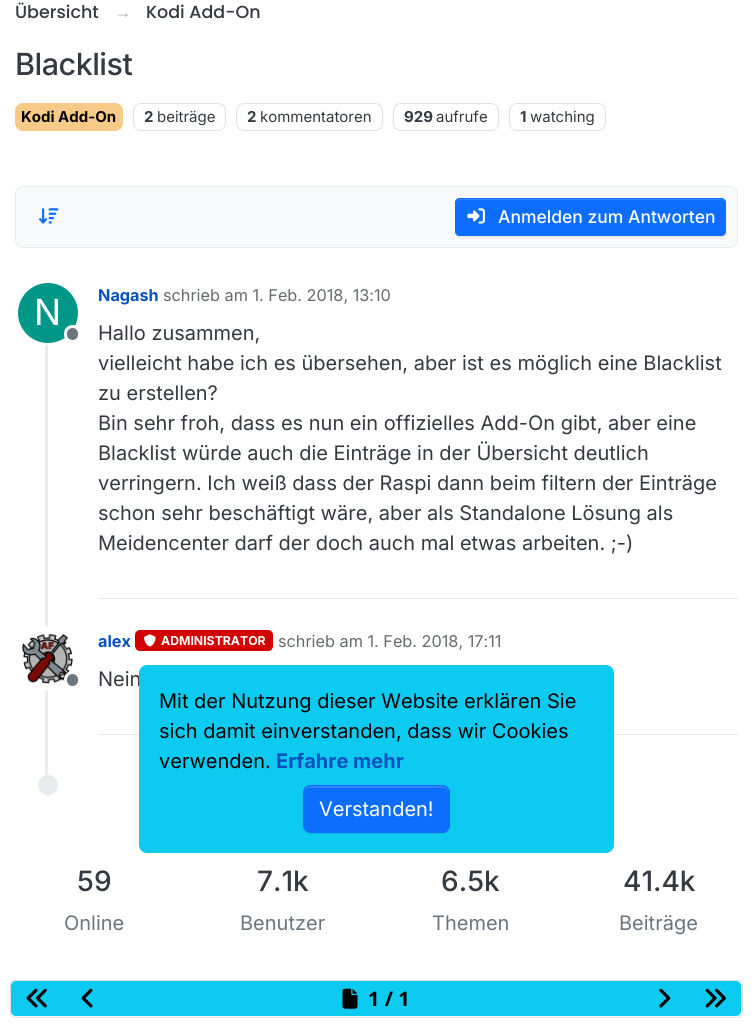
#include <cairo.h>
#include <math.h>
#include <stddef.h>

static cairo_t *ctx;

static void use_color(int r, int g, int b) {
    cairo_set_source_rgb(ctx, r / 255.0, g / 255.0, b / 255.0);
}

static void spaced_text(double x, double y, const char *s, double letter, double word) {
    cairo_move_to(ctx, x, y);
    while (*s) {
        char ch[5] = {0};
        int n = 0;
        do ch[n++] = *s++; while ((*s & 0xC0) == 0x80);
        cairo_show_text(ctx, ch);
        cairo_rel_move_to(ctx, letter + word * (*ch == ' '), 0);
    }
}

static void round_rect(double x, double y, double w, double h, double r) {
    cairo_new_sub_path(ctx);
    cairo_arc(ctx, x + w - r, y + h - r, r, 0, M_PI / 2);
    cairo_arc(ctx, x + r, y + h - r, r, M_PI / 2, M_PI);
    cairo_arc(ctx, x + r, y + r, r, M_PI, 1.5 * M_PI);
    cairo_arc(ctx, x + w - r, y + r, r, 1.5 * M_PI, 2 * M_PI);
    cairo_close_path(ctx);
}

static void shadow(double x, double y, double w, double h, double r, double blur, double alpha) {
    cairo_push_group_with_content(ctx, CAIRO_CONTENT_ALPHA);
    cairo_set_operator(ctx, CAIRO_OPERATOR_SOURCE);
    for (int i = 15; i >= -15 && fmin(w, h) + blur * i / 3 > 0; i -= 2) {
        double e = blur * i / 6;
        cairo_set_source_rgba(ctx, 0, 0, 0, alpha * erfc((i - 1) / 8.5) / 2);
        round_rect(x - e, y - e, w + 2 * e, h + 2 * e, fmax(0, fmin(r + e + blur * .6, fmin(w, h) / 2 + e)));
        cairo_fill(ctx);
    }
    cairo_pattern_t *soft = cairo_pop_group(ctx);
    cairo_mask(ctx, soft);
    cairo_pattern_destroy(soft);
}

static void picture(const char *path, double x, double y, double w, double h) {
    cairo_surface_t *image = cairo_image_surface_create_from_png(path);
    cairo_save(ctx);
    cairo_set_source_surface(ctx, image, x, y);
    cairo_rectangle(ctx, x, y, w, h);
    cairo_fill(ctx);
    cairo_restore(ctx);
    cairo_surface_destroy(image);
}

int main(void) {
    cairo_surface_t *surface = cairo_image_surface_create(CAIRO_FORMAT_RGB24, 752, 1032);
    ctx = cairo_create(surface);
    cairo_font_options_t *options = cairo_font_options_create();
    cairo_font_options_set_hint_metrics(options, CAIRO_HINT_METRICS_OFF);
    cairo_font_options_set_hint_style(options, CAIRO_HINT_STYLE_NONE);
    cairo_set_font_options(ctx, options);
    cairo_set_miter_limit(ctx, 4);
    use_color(255, 255, 255);
    cairo_paint(ctx);
    cairo_select_font_face(ctx, "Poppins Medium", CAIRO_FONT_SLANT_NORMAL, CAIRO_FONT_WEIGHT_NORMAL);
    cairo_set_font_size(ctx, 17.5);
    use_color(52, 58, 64);
    cairo_move_to(ctx, 15, 18);
    cairo_show_text(ctx, "Übersicht");
    cairo_select_font_face(ctx, "Liberation Sans", CAIRO_FONT_SLANT_NORMAL, CAIRO_FONT_WEIGHT_NORMAL);
    use_color(173, 181, 189);
    cairo_move_to(ctx, 114, 18);
    cairo_show_text(ctx, "→");
    cairo_select_font_face(ctx, "Poppins Medium", CAIRO_FONT_SLANT_NORMAL, CAIRO_FONT_WEIGHT_NORMAL);
    use_color(52, 58, 64);
    cairo_move_to(ctx, 146, 18);
    cairo_show_text(ctx, "Kodi Add-On");
    cairo_select_font_face(ctx, "Inter Medium", CAIRO_FONT_SLANT_NORMAL, CAIRO_FONT_WEIGHT_NORMAL);
    cairo_set_font_size(ctx, 30.5);
    spaced_text(15, 75, "Blacklist", -0.5, 0);
    use_color(247, 202, 136);
    round_rect(15.5, 103.5, 107, 27, 7.5);
    cairo_fill_preserve(ctx);
    cairo_set_line_width(ctx, 1);
    cairo_stroke(ctx);
    cairo_select_font_face(ctx, "Inter", CAIRO_FONT_SLANT_NORMAL, CAIRO_FONT_WEIGHT_BOLD);
    cairo_set_font_size(ctx, 15);
    use_color(0, 0, 0);
    cairo_move_to(ctx, 21, 122);
    cairo_show_text(ctx, "Kodi Add-On");
    round_rect(133.5, 103.5, 92, 27, 7.5);
    use_color(222, 226, 230);
    cairo_stroke(ctx);
    use_color(52, 58, 64);
    cairo_move_to(ctx, 144, 122);
    cairo_show_text(ctx, "2");
    cairo_select_font_face(ctx, "Inter", CAIRO_FONT_SLANT_NORMAL, CAIRO_FONT_WEIGHT_NORMAL);
    cairo_move_to(ctx, 157, 122);
    cairo_show_text(ctx, "beiträge");
    round_rect(236.5, 103.5, 146, 27, 7.5);
    use_color(222, 226, 230);
    cairo_stroke(ctx);
    cairo_select_font_face(ctx, "Inter", CAIRO_FONT_SLANT_NORMAL, CAIRO_FONT_WEIGHT_BOLD);
    use_color(52, 58, 64);
    cairo_move_to(ctx, 247, 122);
    cairo_show_text(ctx, "2");
    cairo_select_font_face(ctx, "Inter", CAIRO_FONT_SLANT_NORMAL, CAIRO_FONT_WEIGHT_NORMAL);
    cairo_move_to(ctx, 260, 122);
    cairo_show_text(ctx, "kommentatoren");
    round_rect(393.5, 103.5, 105, 27, 7.5);
    use_color(222, 226, 230);
    cairo_stroke(ctx);
    cairo_select_font_face(ctx, "Inter", CAIRO_FONT_SLANT_NORMAL, CAIRO_FONT_WEIGHT_BOLD);
    use_color(52, 58, 64);
    cairo_move_to(ctx, 404, 122);
    cairo_show_text(ctx, "929");
    cairo_select_font_face(ctx, "Inter", CAIRO_FONT_SLANT_NORMAL, CAIRO_FONT_WEIGHT_NORMAL);
    cairo_move_to(ctx, 436, 122);
    cairo_show_text(ctx, "aufrufe");
    round_rect(509.5, 103.5, 96, 27, 7.5);
    use_color(222, 226, 230);
    cairo_stroke(ctx);
    cairo_select_font_face(ctx, "Inter", CAIRO_FONT_SLANT_NORMAL, CAIRO_FONT_WEIGHT_BOLD);
    use_color(52, 58, 64);
    cairo_move_to(ctx, 520, 122);
    cairo_show_text(ctx, "1");
    cairo_select_font_face(ctx, "Inter", CAIRO_FONT_SLANT_NORMAL, CAIRO_FONT_WEIGHT_NORMAL);
    cairo_move_to(ctx, 530, 122);
    cairo_show_text(ctx, "watching");
    use_color(248, 249, 250);
    round_rect(15.5, 186.5, 722, 61, 7.5);
    cairo_fill_preserve(ctx);
    use_color(233, 236, 239);
    cairo_stroke(ctx);
    picture("img1.png", 39, 208, 20, 16);
    use_color(0, 0, 0);
    shadow(455, 199, 271, 39, 5, 0.5, 0.07);
    use_color(13, 110, 253);
    round_rect(455, 198, 271, 38, 5);
    cairo_fill(ctx);
    use_color(49, 132, 253);
    cairo_new_path(ctx);
    cairo_move_to(ctx, 460, 200);
    cairo_line_to(ctx, 721, 200);
    cairo_curve_to(ctx, 723, 200, 725, 202, 725, 204);
    cairo_curve_to(ctx, 725, 201, 724, 199, 721, 199);
    cairo_line_to(ctx, 460, 199);
    cairo_curve_to(ctx, 457, 199, 456, 201, 456, 204);
    cairo_curve_to(ctx, 456, 202, 458, 200, 460, 200);
    cairo_close_path(ctx);
    cairo_fill(ctx);
    round_rect(455.5, 198.5, 270, 37, 4.5);
    use_color(13, 110, 253);
    cairo_stroke(ctx);
    picture("img2.png", 467, 208, 18, 16);
    cairo_select_font_face(ctx, "Inter Medium", CAIRO_FONT_SLANT_NORMAL, CAIRO_FONT_WEIGHT_NORMAL);
    cairo_set_font_size(ctx, 17.5);
    use_color(255, 255, 255);
    cairo_move_to(ctx, 498, 223);
    cairo_show_text(ctx, "Anmelden zum Antworten");
    use_color(233, 236, 239);
    cairo_rectangle(ctx, 45, 283, 3, 492);
    cairo_fill(ctx);
    cairo_arc(ctx, 47.5, 312.5, 31, 0, 2 * M_PI);
    use_color(255, 255, 255);
    cairo_set_line_width(ctx, 3);
    cairo_stroke(ctx);
    use_color(0, 150, 136);
    cairo_arc(ctx, 48, 313, 30, 0, 2 * M_PI);
    cairo_fill(ctx);
    cairo_select_font_face(ctx, "Inter", CAIRO_FONT_SLANT_NORMAL, CAIRO_FONT_WEIGHT_NORMAL);
    cairo_set_font_size(ctx, 36);
    use_color(255, 255, 255);
    cairo_move_to(ctx, 34, 325);
    cairo_show_text(ctx, "N");
    use_color(108, 117, 125);
    round_rect(65.5, 326.5, 14, 15, 7);
    cairo_fill_preserve(ctx);
    use_color(255, 255, 255);
    cairo_stroke(ctx);
    cairo_select_font_face(ctx, "Inter", CAIRO_FONT_SLANT_NORMAL, CAIRO_FONT_WEIGHT_BOLD);
    cairo_set_font_size(ctx, 16.25);
    use_color(9, 81, 190);
    cairo_move_to(ctx, 98, 301);
    cairo_show_text(ctx, "Nagash");
    cairo_select_font_face(ctx, "Inter", CAIRO_FONT_SLANT_NORMAL, CAIRO_FONT_WEIGHT_NORMAL);
    use_color(103, 107, 112);
    cairo_move_to(ctx, 163, 301);
    cairo_show_text(ctx, "schrieb am 1. Feb. 2018, 13:10");
    cairo_set_font_size(ctx, 20);
    use_color(52, 58, 64);
    cairo_move_to(ctx, 98, 340);
    cairo_show_text(ctx, "Hallo zusammen,");
    cairo_move_to(ctx, 98, 370);
    cairo_show_text(ctx, "vielleicht habe ich es übersehen, aber ist es möglich eine Blacklist");
    cairo_move_to(ctx, 98, 400);
    cairo_show_text(ctx, "zu erstellen?");
    cairo_move_to(ctx, 98, 430);
    cairo_show_text(ctx, "Bin sehr froh, dass es nun ein offizielles Add-On gibt, aber eine");
    cairo_move_to(ctx, 98, 460);
    cairo_show_text(ctx, "Blacklist würde auch die Einträge in der Übersicht deutlich");
    cairo_move_to(ctx, 98, 490);
    cairo_show_text(ctx, "verringern. Ich weiß dass der Raspi dann beim filtern der Einträge");
    cairo_move_to(ctx, 98, 520);
    cairo_show_text(ctx, "schon sehr beschäftigt wäre, aber als Standalone Lösung als");
    cairo_move_to(ctx, 98, 550);
    cairo_show_text(ctx, "Meidencenter darf der doch auch mal etwas arbeiten. ;-)");
    use_color(233, 236, 239);
    cairo_rectangle(ctx, 98, 598, 640, 1);
    cairo_fill(ctx);
    use_color(255, 255, 255);
    cairo_arc(ctx, 47.5, 658.5, 31, 0, 2 * M_PI);
    cairo_fill_preserve(ctx);
    cairo_stroke(ctx);
    picture("img3.png", 22, 633, 51, 51);
    use_color(108, 117, 125);
    round_rect(65.5, 672.5, 14, 15, 7);
    cairo_fill_preserve(ctx);
    use_color(255, 255, 255);
    cairo_stroke(ctx);
    cairo_select_font_face(ctx, "Inter", CAIRO_FONT_SLANT_NORMAL, CAIRO_FONT_WEIGHT_BOLD);
    cairo_set_font_size(ctx, 16.25);
    use_color(9, 81, 190);
    cairo_move_to(ctx, 98, 647);
    cairo_show_text(ctx, "alex");
    use_color(212, 0, 0);
    round_rect(135, 630, 138, 21, 5);
    cairo_fill(ctx);
    picture("img4.png", 144, 634, 12, 13);
    cairo_set_font_size(ctx, 12.25);
    use_color(255, 255, 255);
    cairo_move_to(ctx, 161, 645);
    cairo_show_text(ctx, "ADMINISTRATOR");
    cairo_select_font_face(ctx, "Inter", CAIRO_FONT_SLANT_NORMAL, CAIRO_FONT_WEIGHT_NORMAL);
    cairo_set_font_size(ctx, 16.25);
    use_color(103, 107, 112);
    cairo_move_to(ctx, 278, 647);
    cairo_show_text(ctx, "schrieb am 1. Feb. 2018, 17:11");
    cairo_set_font_size(ctx, 20);
    use_color(52, 58, 64);
    cairo_move_to(ctx, 98, 686);
    cairo_show_text(ctx, "Nein");
    use_color(233, 236, 239);
    cairo_rectangle(ctx, 98, 734, 640, 1);
    cairo_fill(ctx);
    cairo_arc(ctx, 48, 785, 10, 0, 2 * M_PI);
    cairo_fill(ctx);
    cairo_select_font_face(ctx, "Inter Medium", CAIRO_FONT_SLANT_NORMAL, CAIRO_FONT_WEIGHT_NORMAL);
    cairo_set_font_size(ctx, 28);
    use_color(52, 58, 64);
    cairo_move_to(ctx, 77, 891);
    cairo_show_text(ctx, "59");
    cairo_select_font_face(ctx, "Inter", CAIRO_FONT_SLANT_NORMAL, CAIRO_FONT_WEIGHT_NORMAL);
    cairo_set_font_size(ctx, 20);
    use_color(108, 117, 125);
    cairo_move_to(ctx, 64, 930);
    cairo_show_text(ctx, "Online");
    cairo_select_font_face(ctx, "Inter Medium", CAIRO_FONT_SLANT_NORMAL, CAIRO_FONT_WEIGHT_NORMAL);
    cairo_set_font_size(ctx, 28);
    use_color(52, 58, 64);
    cairo_move_to(ctx, 257, 891);
    cairo_show_text(ctx, "7.1k");
    cairo_select_font_face(ctx, "Inter", CAIRO_FONT_SLANT_NORMAL, CAIRO_FONT_WEIGHT_NORMAL);
    cairo_set_font_size(ctx, 20);
    use_color(108, 117, 125);
    cairo_move_to(ctx, 240, 930);
    cairo_show_text(ctx, "Benutzer");
    cairo_select_font_face(ctx, "Inter Medium", CAIRO_FONT_SLANT_NORMAL, CAIRO_FONT_WEIGHT_NORMAL);
    cairo_set_font_size(ctx, 28);
    use_color(52, 58, 64);
    cairo_move_to(ctx, 441, 891);
    cairo_show_text(ctx, "6.5k");
    cairo_select_font_face(ctx, "Inter", CAIRO_FONT_SLANT_NORMAL, CAIRO_FONT_WEIGHT_NORMAL);
    cairo_set_font_size(ctx, 20);
    use_color(108, 117, 125);
    cairo_move_to(ctx, 432, 930);
    cairo_show_text(ctx, "Themen");
    cairo_select_font_face(ctx, "Inter Medium", CAIRO_FONT_SLANT_NORMAL, CAIRO_FONT_WEIGHT_NORMAL);
    cairo_set_font_size(ctx, 28);
    use_color(52, 58, 64);
    cairo_move_to(ctx, 623, 891);
    cairo_show_text(ctx, "41.4k");
    cairo_select_font_face(ctx, "Inter", CAIRO_FONT_SLANT_NORMAL, CAIRO_FONT_WEIGHT_NORMAL);
    cairo_set_font_size(ctx, 20);
    use_color(108, 117, 125);
    cairo_move_to(ctx, 619, 930);
    cairo_show_text(ctx, "Beiträge");
    use_color(13, 202, 240);
    round_rect(139, 665, 475, 188, 8);
    cairo_fill(ctx);
    use_color(0, 0, 0);
    cairo_move_to(ctx, 159, 708);
    cairo_show_text(ctx, "Mit der Nutzung dieser Website erklären Sie");
    cairo_move_to(ctx, 159, 738);
    cairo_show_text(ctx, "sich damit einverstanden, dass wir Cookies");
    cairo_move_to(ctx, 159, 768);
    cairo_show_text(ctx, "verwenden.");
    cairo_select_font_face(ctx, "Inter", CAIRO_FONT_SLANT_NORMAL, CAIRO_FONT_WEIGHT_BOLD);
    use_color(9, 81, 190);
    cairo_move_to(ctx, 276, 768);
    cairo_show_text(ctx, "Erfahre mehr");
    use_color(0, 0, 0);
    shadow(303, 786, 147, 48, 8, 0.5, 0.07);
    use_color(13, 110, 253);
    round_rect(303, 785, 147, 48, 8);
    cairo_fill(ctx);
    use_color(49, 132, 253);
    cairo_new_path(ctx);
    cairo_move_to(ctx, 310, 788);
    cairo_line_to(ctx, 442, 788);
    cairo_curve_to(ctx, 446, 788, 449, 790, 449, 794);
    cairo_line_to(ctx, 449, 792);
    cairo_curve_to(ctx, 449, 789, 446, 786, 443, 786);
    cairo_line_to(ctx, 310, 786);
    cairo_curve_to(ctx, 307, 786, 304, 789, 304, 792);
    cairo_line_to(ctx, 304, 794);
    cairo_curve_to(ctx, 304, 790, 307, 788, 310, 788);
    cairo_close_path(ctx);
    cairo_fill(ctx);
    round_rect(303.5, 785.5, 146, 47, 7.5);
    use_color(13, 110, 253);
    cairo_set_line_width(ctx, 1);
    cairo_stroke(ctx);
    cairo_select_font_face(ctx, "Inter", CAIRO_FONT_SLANT_NORMAL, CAIRO_FONT_WEIGHT_NORMAL);
    use_color(255, 255, 255);
    cairo_move_to(ctx, 319, 816);
    cairo_show_text(ctx, "Verstanden!");
    use_color(248, 249, 250);
    round_rect(10.5, 980.5, 732, 37, 4.5);
    cairo_fill_preserve(ctx);
    use_color(222, 226, 230);
    cairo_stroke(ctx);
    use_color(13, 202, 240);
    round_rect(11, 981, 730, 35, 5);
    cairo_fill(ctx);
    picture("img5.png", 26, 988, 21, 20);
    picture("img6.png", 81, 988, 12, 20);
    picture("img7.png", 342, 988, 16, 21);
    cairo_select_font_face(ctx, "Noto Sans", CAIRO_FONT_SLANT_NORMAL, CAIRO_FONT_WEIGHT_BOLD);
    use_color(0, 0, 0);
    cairo_move_to(ctx, 368, 1006);
    cairo_show_text(ctx, "1 / 1");
    picture("img8.png", 659, 988, 12, 20);
    picture("img9.png", 705, 988, 21, 20);
    cairo_surface_write_to_png(surface, "result.png");
    cairo_font_options_destroy(options);
    cairo_destroy(ctx);
    cairo_surface_destroy(surface);
    return 0;
}
